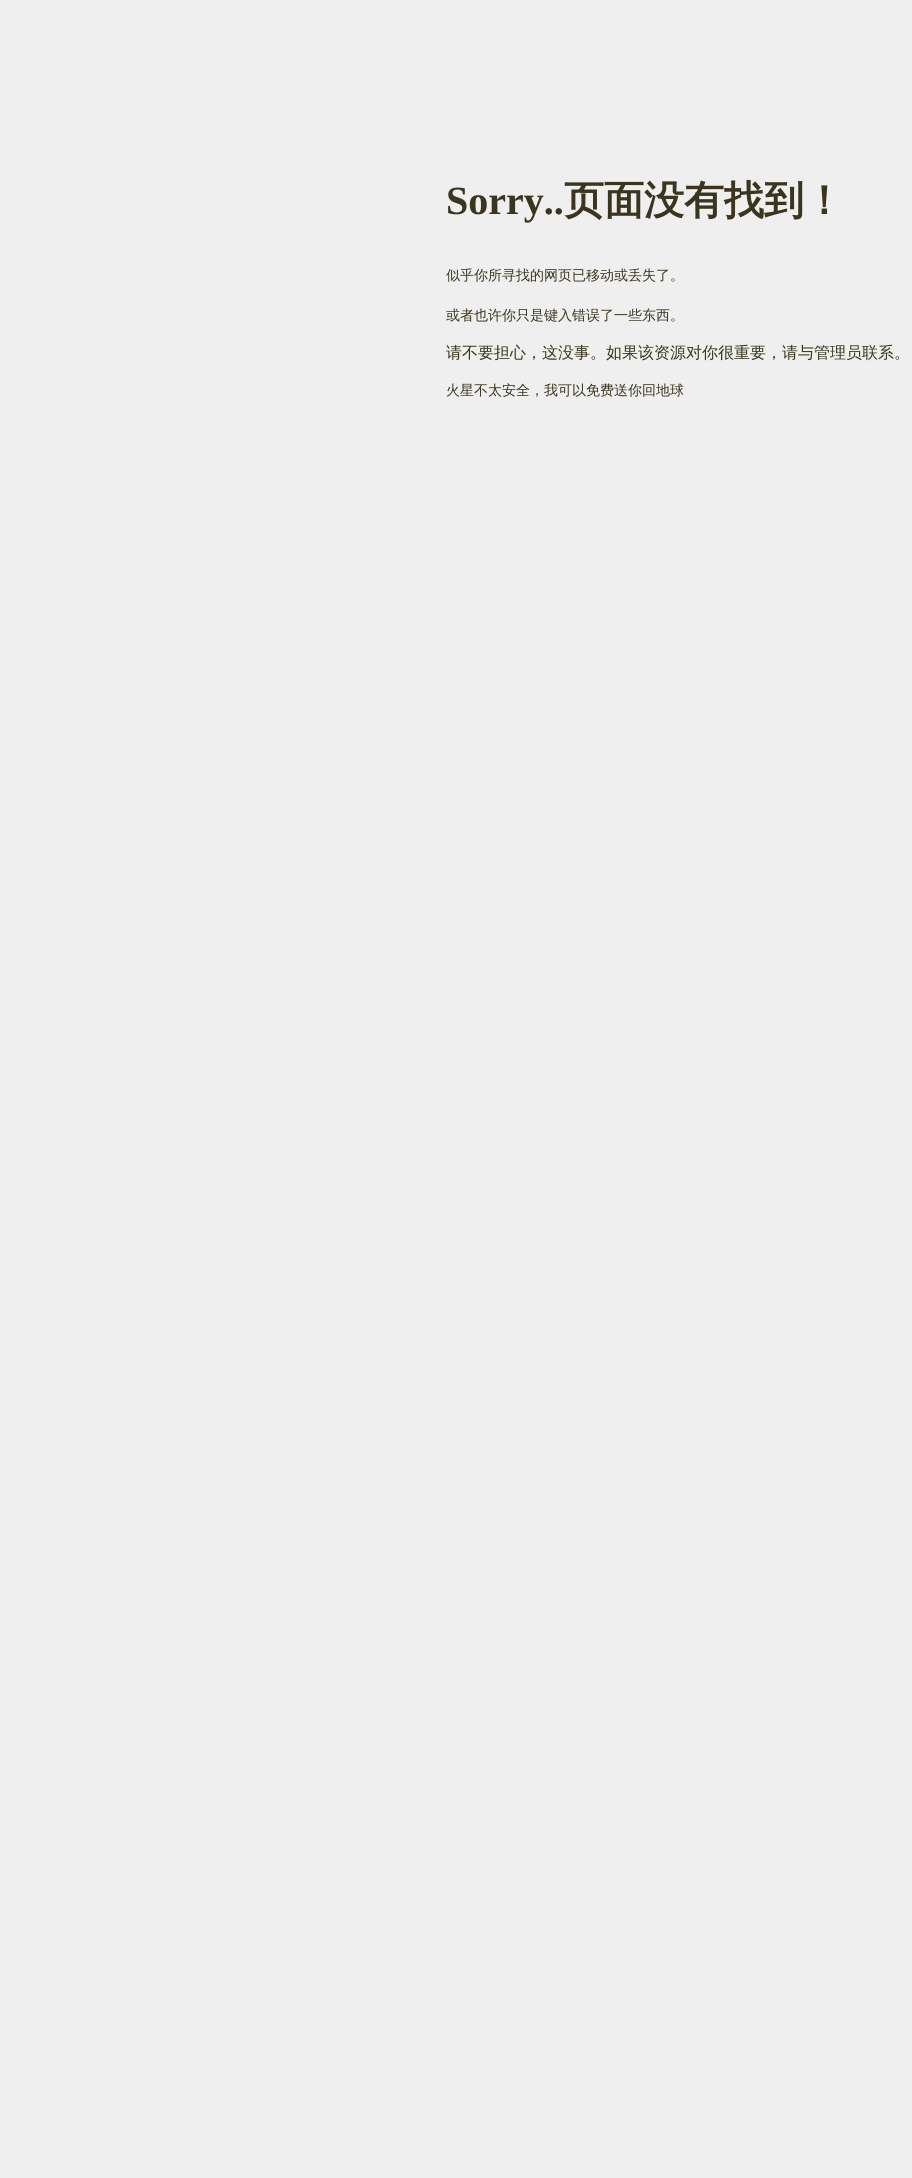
#include <cairo.h>
#include <math.h>
#include <stddef.h>

static cairo_t *ctx;

static void use_color(int r, int g, int b) {
    cairo_set_source_rgb(ctx, r / 255.0, g / 255.0, b / 255.0);
}

int main(void) {
    cairo_surface_t *surface = cairo_image_surface_create(CAIRO_FORMAT_RGB24, 912, 2178);
    ctx = cairo_create(surface);
    cairo_font_options_t *options = cairo_font_options_create();
    cairo_font_options_set_hint_metrics(options, CAIRO_HINT_METRICS_OFF);
    cairo_font_options_set_hint_style(options, CAIRO_HINT_STYLE_NONE);
    cairo_set_font_options(ctx, options);
    cairo_set_miter_limit(ctx, 4);
    use_color(239, 239, 239);
    cairo_paint(ctx);
    cairo_select_font_face(ctx, "Liberation Serif", CAIRO_FONT_SLANT_NORMAL, CAIRO_FONT_WEIGHT_BOLD);
    cairo_set_font_size(ctx, 40);
    use_color(57, 53, 30);
    cairo_move_to(ctx, 446, 214);
    cairo_show_text(ctx, "Sorry..");
    cairo_select_font_face(ctx, "WenQuanYi Zen Hei", CAIRO_FONT_SLANT_NORMAL, CAIRO_FONT_WEIGHT_BOLD);
    cairo_move_to(ctx, 564, 214);
    cairo_show_text(ctx, "页面没有找到！");
    cairo_select_font_face(ctx, "WenQuanYi Zen Hei Medium", CAIRO_FONT_SLANT_NORMAL, CAIRO_FONT_WEIGHT_NORMAL);
    cairo_set_font_size(ctx, 14);
    cairo_move_to(ctx, 446, 280);
    cairo_show_text(ctx, "似乎你所寻找的网页已移动或丢失了。");
    cairo_move_to(ctx, 446, 320);
    cairo_show_text(ctx, "或者也许你只是键入错误了一些东西。");
    cairo_set_font_size(ctx, 16);
    cairo_move_to(ctx, 446, 358);
    cairo_show_text(ctx, "请不要担心，这没事。如果该资源对你很重要，请与管理员联系。");
    cairo_set_font_size(ctx, 14);
    cairo_move_to(ctx, 446, 395);
    cairo_show_text(ctx, "火星不太安全，我可以免费送你回地球");
    cairo_surface_write_to_png(surface, "result.png");
    cairo_font_options_destroy(options);
    cairo_destroy(ctx);
    cairo_surface_destroy(surface);
    return 0;
}
